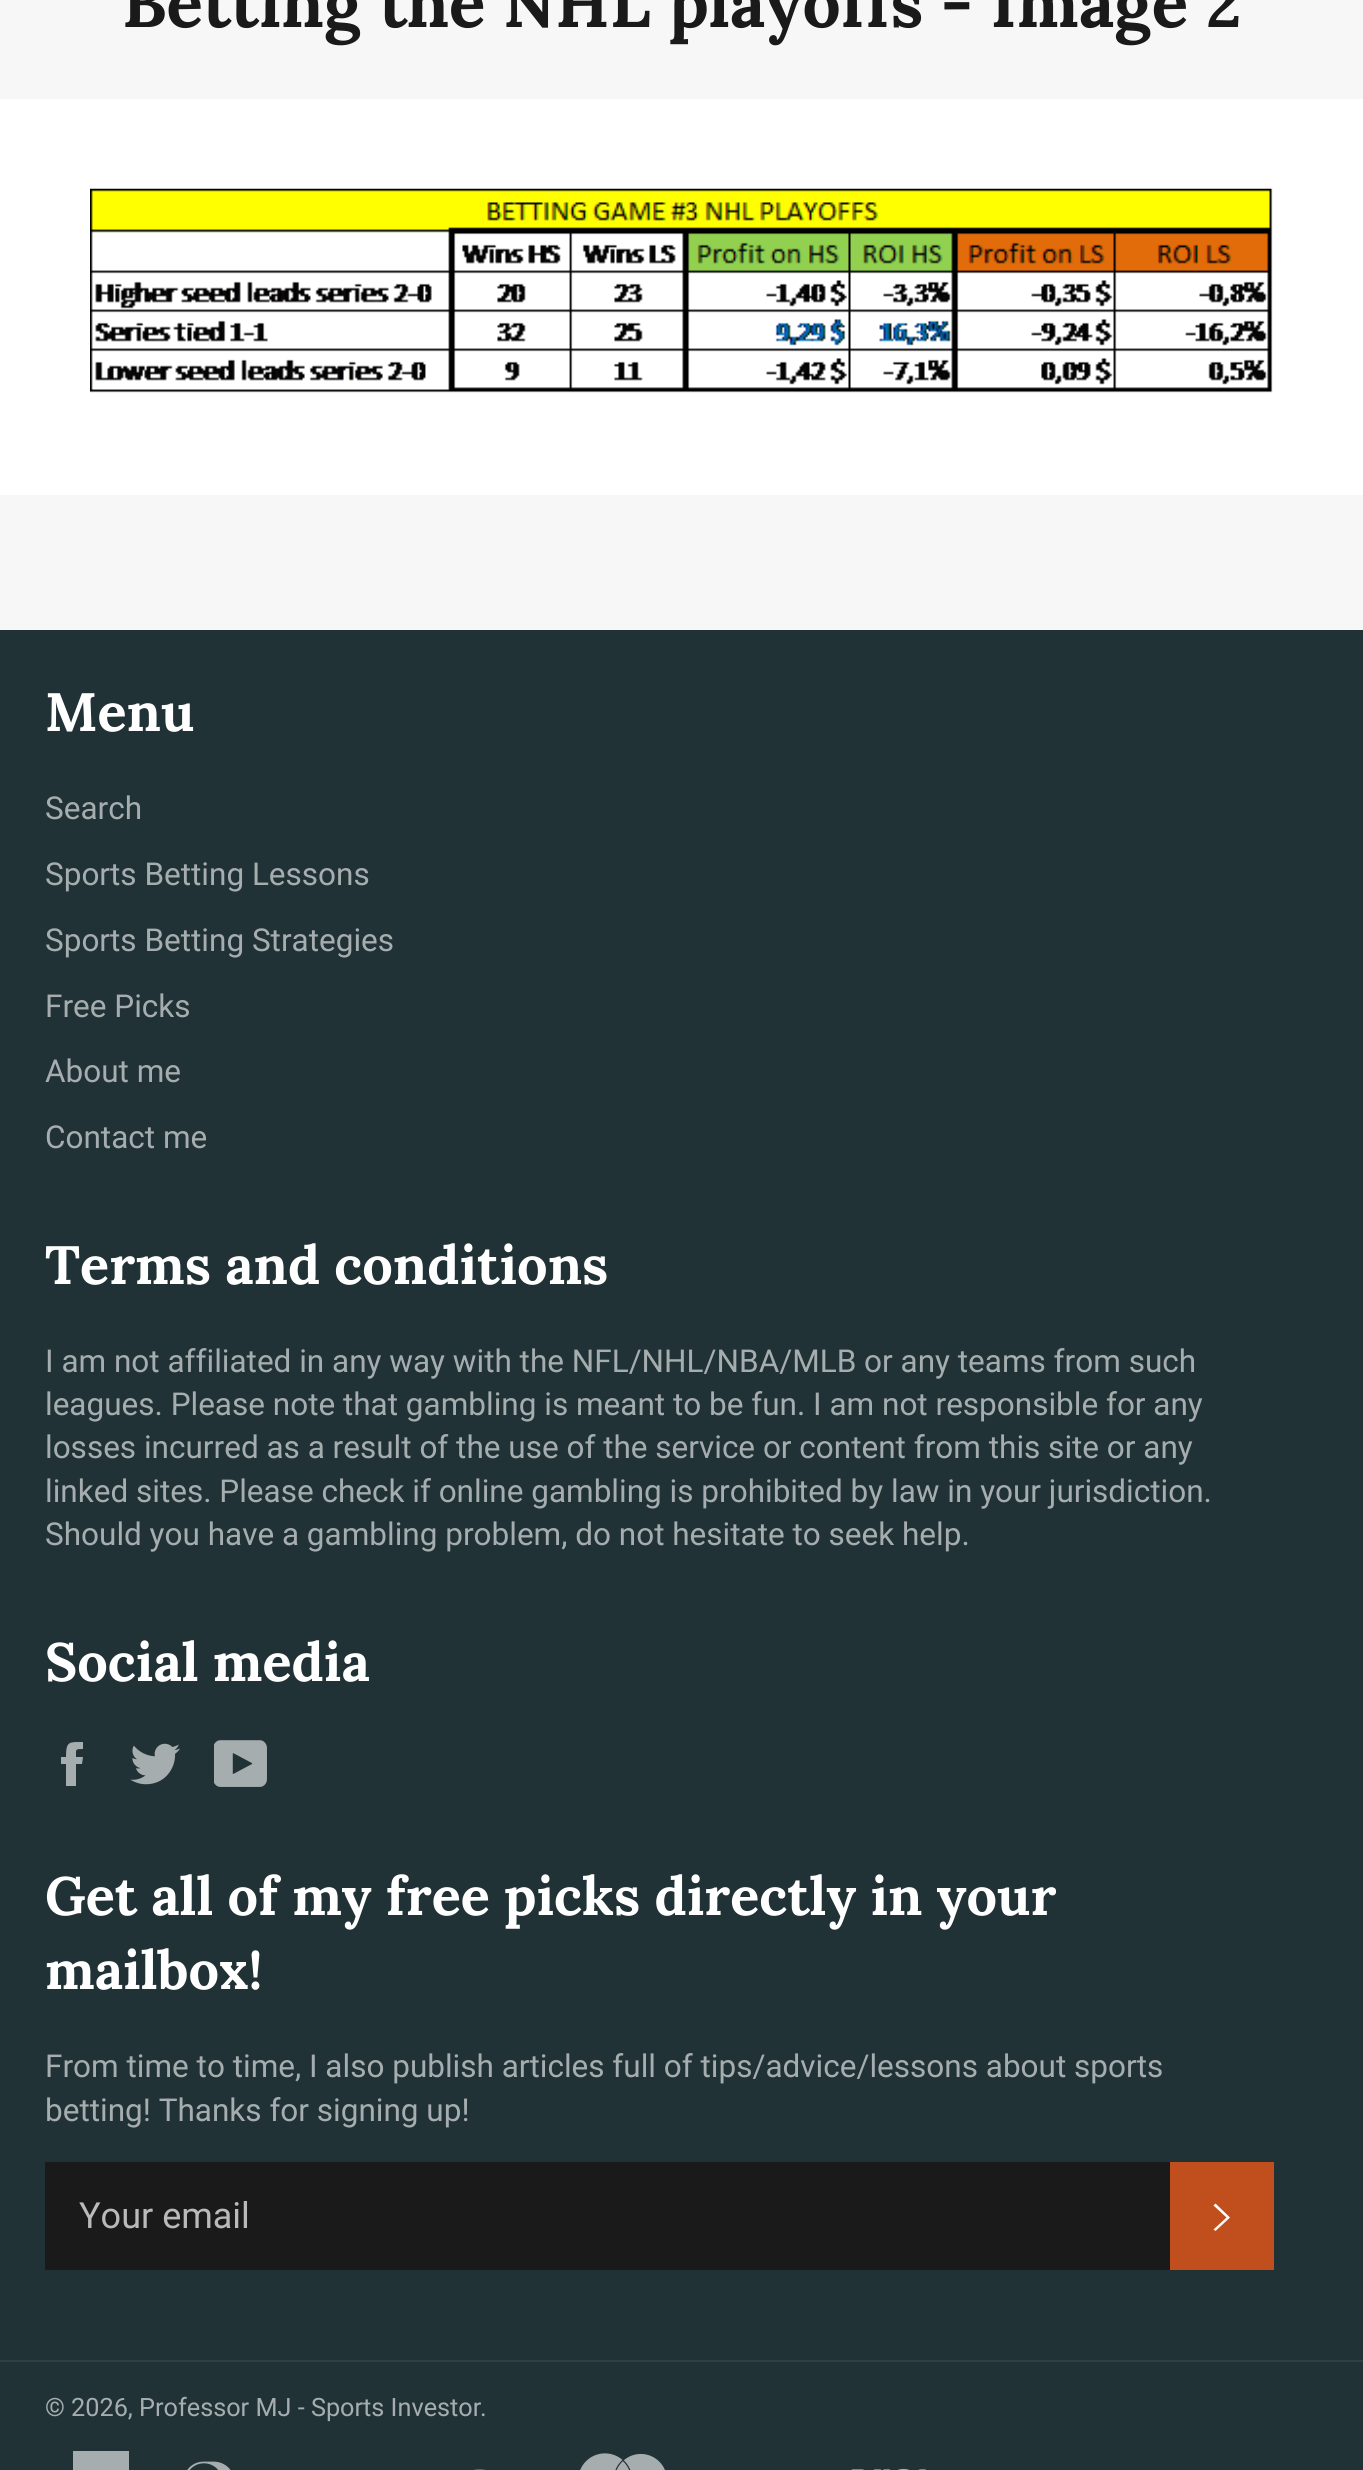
#include <cairo.h>
#include <math.h>
#include <stddef.h>

static cairo_t *ctx;

static void use_color(int r, int g, int b) {
    cairo_set_source_rgb(ctx, r / 255.0, g / 255.0, b / 255.0);
}

static void picture(const char *path, double x, double y, double w, double h) {
    cairo_surface_t *image = cairo_image_surface_create_from_png(path);
    cairo_save(ctx);
    cairo_set_source_surface(ctx, image, x, y);
    cairo_rectangle(ctx, x, y, w, h);
    cairo_fill(ctx);
    cairo_restore(ctx);
    cairo_surface_destroy(image);
}

int main(void) {
    cairo_surface_t *surface = cairo_image_surface_create(CAIRO_FORMAT_RGB24, 1363, 2470);
    ctx = cairo_create(surface);
    cairo_font_options_t *options = cairo_font_options_create();
    cairo_font_options_set_hint_metrics(options, CAIRO_HINT_METRICS_OFF);
    cairo_font_options_set_hint_style(options, CAIRO_HINT_STYLE_NONE);
    cairo_set_font_options(ctx, options);
    cairo_set_miter_limit(ctx, 4);
    use_color(247, 247, 247);
    cairo_paint(ctx);
    cairo_select_font_face(ctx, "Lora", CAIRO_FONT_SLANT_NORMAL, CAIRO_FONT_WEIGHT_BOLD);
    cairo_set_font_size(ctx, 67.5);
    use_color(26, 26, 26);
    cairo_move_to(ctx, 122, 27);
    cairo_show_text(ctx, "Betting the NHL playoffs - Image 2");
    use_color(255, 255, 255);
    cairo_rectangle(ctx, 0, 99, 1363, 396);
    cairo_fill(ctx);
    picture("img1.png", 90, 188, 1183, 205);
    use_color(33, 50, 54);
    cairo_rectangle(ctx, 0, 630, 1363, 1840);
    cairo_fill(ctx);
    cairo_set_font_size(ctx, 54);
    use_color(255, 255, 255);
    cairo_move_to(ctx, 45, 731);
    cairo_show_text(ctx, "Menu");
    cairo_select_font_face(ctx, "Roboto", CAIRO_FONT_SLANT_NORMAL, CAIRO_FONT_WEIGHT_NORMAL);
    cairo_set_font_size(ctx, 31.5);
    use_color(166, 173, 175);
    cairo_move_to(ctx, 45, 819);
    cairo_show_text(ctx, "Search");
    cairo_move_to(ctx, 45, 885);
    cairo_show_text(ctx, "Sports Betting Lessons");
    cairo_move_to(ctx, 45, 951);
    cairo_show_text(ctx, "Sports Betting Strategies");
    cairo_move_to(ctx, 45, 1017);
    cairo_show_text(ctx, "Free Picks");
    cairo_move_to(ctx, 45, 1082);
    cairo_show_text(ctx, "About me");
    cairo_move_to(ctx, 45, 1148);
    cairo_show_text(ctx, "Contact me");
    cairo_select_font_face(ctx, "Lora", CAIRO_FONT_SLANT_NORMAL, CAIRO_FONT_WEIGHT_BOLD);
    cairo_set_font_size(ctx, 54);
    use_color(255, 255, 255);
    cairo_move_to(ctx, 45, 1284);
    cairo_show_text(ctx, "Terms and conditions");
    cairo_select_font_face(ctx, "Roboto", CAIRO_FONT_SLANT_NORMAL, CAIRO_FONT_WEIGHT_NORMAL);
    cairo_set_font_size(ctx, 31.5);
    use_color(166, 173, 175);
    cairo_move_to(ctx, 45, 1372);
    cairo_show_text(ctx, "I am not affiliated in any way with the NFL/NHL/NBA/MLB or any teams from such");
    cairo_move_to(ctx, 45, 1415);
    cairo_show_text(ctx, "leagues. Please note that gambling is meant to be fun. I am not responsible for any");
    cairo_move_to(ctx, 45, 1458);
    cairo_show_text(ctx, "losses incurred as a result of the use of the service or content from this site or any");
    cairo_move_to(ctx, 45, 1502);
    cairo_show_text(ctx, "linked sites. Please check if online gambling is prohibited by law in your jurisdiction.");
    cairo_move_to(ctx, 45, 1545);
    cairo_show_text(ctx, "Should you have a gambling problem, do not hesitate to seek help.");
    cairo_select_font_face(ctx, "Lora", CAIRO_FONT_SLANT_NORMAL, CAIRO_FONT_WEIGHT_BOLD);
    cairo_set_font_size(ctx, 54);
    use_color(255, 255, 255);
    cairo_move_to(ctx, 45, 1681);
    cairo_show_text(ctx, "Social media");
    use_color(166, 173, 175);
    cairo_new_path(ctx);
    cairo_move_to(ctx, 76, 1757);
    cairo_curve_to(ctx, 76, 1749, 75, 1749, 83, 1749);
    cairo_line_to(ctx, 83, 1742);
    cairo_curve_to(ctx, 69, 1742, 66, 1741, 66, 1757);
    cairo_line_to(ctx, 61, 1757);
    cairo_line_to(ctx, 61, 1764);
    cairo_line_to(ctx, 66, 1764);
    cairo_line_to(ctx, 66, 1786);
    cairo_line_to(ctx, 76, 1786);
    cairo_line_to(ctx, 76, 1764);
    cairo_line_to(ctx, 82, 1764);
    cairo_line_to(ctx, 83, 1757);
    cairo_close_path(ctx);
    cairo_fill(ctx);
    picture("img2.png", 130, 1743, 50, 42);
    picture("img3.png", 214, 1740, 53, 47);
    use_color(255, 255, 255);
    cairo_move_to(ctx, 45, 1915);
    cairo_show_text(ctx, "Get all of my free picks directly in your");
    cairo_move_to(ctx, 45, 1989);
    cairo_show_text(ctx, "mailbox!");
    cairo_select_font_face(ctx, "Roboto", CAIRO_FONT_SLANT_NORMAL, CAIRO_FONT_WEIGHT_NORMAL);
    cairo_set_font_size(ctx, 31.5);
    use_color(166, 173, 175);
    cairo_move_to(ctx, 45, 2077);
    cairo_show_text(ctx, "From time to time, I also publish articles full of tips/advice/lessons about sports");
    cairo_move_to(ctx, 45, 2121);
    cairo_show_text(ctx, "betting! Thanks for signing up!");
    use_color(26, 26, 26);
    cairo_rectangle(ctx, 45, 2162, 1125, 108);
    cairo_fill(ctx);
    cairo_set_font_size(ctx, 36);
    use_color(186, 186, 186);
    cairo_move_to(ctx, 79, 2228);
    cairo_show_text(ctx, "Your email");
    use_color(192, 79, 29);
    cairo_rectangle(ctx, 1170, 2162, 104, 108);
    cairo_fill(ctx);
    use_color(255, 255, 255);
    cairo_new_path(ctx);
    cairo_move_to(ctx, 1213.5, 2205.5);
    cairo_line_to(ctx, 1215.5, 2203.5);
    cairo_line_to(ctx, 1230, 2217.5);
    cairo_line_to(ctx, 1215.5, 2231);
    cairo_line_to(ctx, 1213.5, 2229.5);
    cairo_line_to(ctx, 1226.5, 2217.5);
    cairo_close_path(ctx);
    cairo_fill(ctx);
    use_color(43, 65, 70);
    cairo_rectangle(ctx, 0, 2360, 1363, 2);
    cairo_fill(ctx);
    cairo_set_font_size(ctx, 25.25);
    use_color(166, 173, 175);
    cairo_move_to(ctx, 45, 2416);
    cairo_show_text(ctx, "© 2026, Professor MJ - Sports Investor");
    cairo_move_to(ctx, 480, 2416);
    cairo_show_text(ctx, ".");
    cairo_rectangle(ctx, 73, 2451, 56, 19);
    cairo_fill(ctx);
    picture("img4.png", 187, 2461, 44, 9);
    picture("img5.png", 474, 2469, 12, 1);
    picture("img6.png", 580, 2453, 85, 17);
    picture("img7.png", 851, 2468, 75, 2);
    cairo_surface_write_to_png(surface, "result.png");
    cairo_font_options_destroy(options);
    cairo_destroy(ctx);
    cairo_surface_destroy(surface);
    return 0;
}
